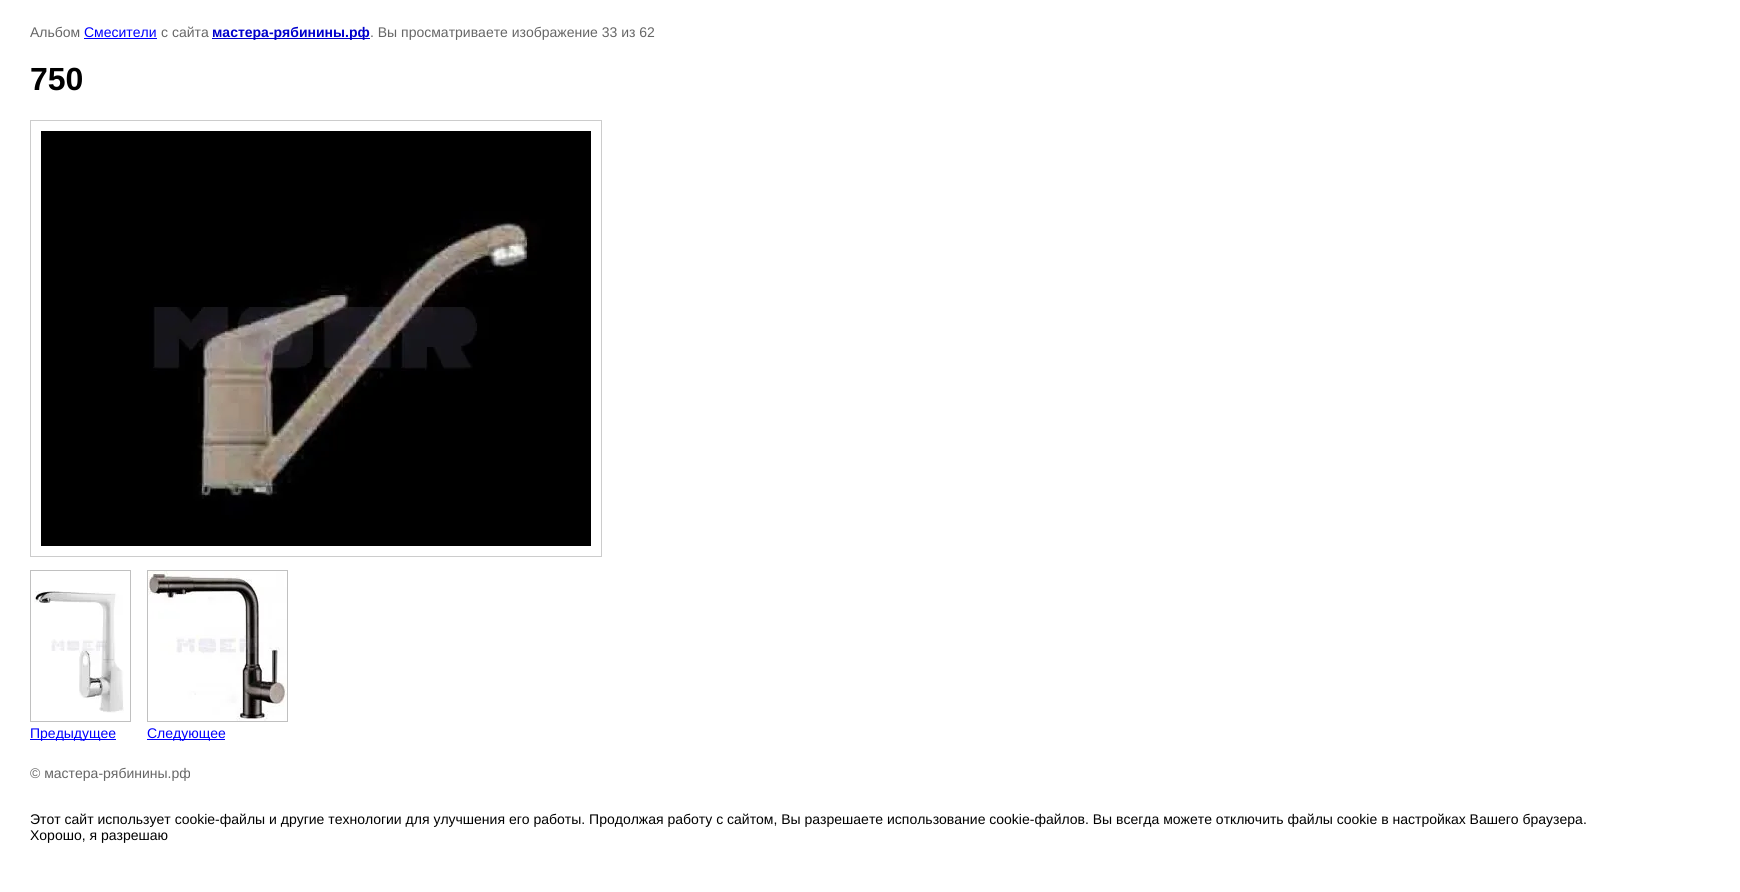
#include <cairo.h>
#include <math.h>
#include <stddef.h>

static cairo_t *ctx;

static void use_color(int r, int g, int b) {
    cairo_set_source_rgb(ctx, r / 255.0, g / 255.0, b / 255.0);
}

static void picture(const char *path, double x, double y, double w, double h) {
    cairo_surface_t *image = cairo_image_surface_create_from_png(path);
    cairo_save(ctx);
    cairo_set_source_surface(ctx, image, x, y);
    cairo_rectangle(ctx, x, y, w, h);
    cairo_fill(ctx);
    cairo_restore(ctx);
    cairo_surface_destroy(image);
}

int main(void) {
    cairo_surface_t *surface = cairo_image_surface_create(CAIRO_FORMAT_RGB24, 1740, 892);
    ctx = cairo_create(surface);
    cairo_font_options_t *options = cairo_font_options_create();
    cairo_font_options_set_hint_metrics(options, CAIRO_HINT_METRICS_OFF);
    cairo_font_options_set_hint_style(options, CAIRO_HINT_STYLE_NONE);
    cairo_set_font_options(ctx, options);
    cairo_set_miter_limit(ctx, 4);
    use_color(255, 255, 255);
    cairo_paint(ctx);
    cairo_select_font_face(ctx, "Liberation Sans", CAIRO_FONT_SLANT_NORMAL, CAIRO_FONT_WEIGHT_NORMAL);
    cairo_set_font_size(ctx, 14);
    use_color(102, 102, 102);
    cairo_move_to(ctx, 30, 37);
    cairo_show_text(ctx, "Альбом");
    use_color(0, 0, 255);
    cairo_move_to(ctx, 84, 37);
    cairo_show_text(ctx, "Смесители");
    cairo_rectangle(ctx, 84, 38, 73, 1);
    cairo_fill(ctx);
    use_color(102, 102, 102);
    cairo_move_to(ctx, 161, 37);
    cairo_show_text(ctx, "с сайта");
    use_color(0, 0, 204);
    cairo_rectangle(ctx, 212, 38, 158, 1);
    cairo_fill(ctx);
    cairo_select_font_face(ctx, "Liberation Sans", CAIRO_FONT_SLANT_NORMAL, CAIRO_FONT_WEIGHT_BOLD);
    cairo_move_to(ctx, 212, 37);
    cairo_show_text(ctx, "мастера-рябинины.рф");
    cairo_select_font_face(ctx, "Liberation Sans", CAIRO_FONT_SLANT_NORMAL, CAIRO_FONT_WEIGHT_NORMAL);
    use_color(102, 102, 102);
    cairo_move_to(ctx, 370, 37);
    cairo_show_text(ctx, ". Вы просматриваете изображение 33 из 62");
    cairo_select_font_face(ctx, "Liberation Sans", CAIRO_FONT_SLANT_NORMAL, CAIRO_FONT_WEIGHT_BOLD);
    cairo_set_font_size(ctx, 32);
    use_color(0, 0, 0);
    cairo_move_to(ctx, 30, 90);
    cairo_show_text(ctx, "750");
    cairo_rectangle(ctx, 30.5, 120.5, 571, 436);
    use_color(204, 204, 204);
    cairo_set_line_width(ctx, 1);
    cairo_stroke(ctx);
    picture("img1.png", 41, 131, 550, 415);
    cairo_rectangle(ctx, 30.5, 570.5, 100, 151);
    use_color(192, 192, 192);
    cairo_stroke(ctx);
    picture("img2.png", 34, 591, 90, 122);
    use_color(0, 0, 255);
    cairo_rectangle(ctx, 30, 739, 86, 1);
    cairo_fill(ctx);
    cairo_select_font_face(ctx, "Liberation Sans", CAIRO_FONT_SLANT_NORMAL, CAIRO_FONT_WEIGHT_NORMAL);
    cairo_set_font_size(ctx, 14);
    cairo_move_to(ctx, 30, 738);
    cairo_show_text(ctx, "Предыдущее");
    cairo_rectangle(ctx, 147.5, 570.5, 140, 151);
    use_color(192, 192, 192);
    cairo_stroke(ctx);
    picture("img3.png", 148, 571, 139, 150);
    use_color(0, 0, 255);
    cairo_rectangle(ctx, 147, 739, 78, 1);
    cairo_fill(ctx);
    cairo_move_to(ctx, 147, 738);
    cairo_show_text(ctx, "Следующее");
    use_color(102, 102, 102);
    cairo_move_to(ctx, 30, 778);
    cairo_show_text(ctx, "© мастера-рябинины.рф");
    use_color(0, 0, 0);
    cairo_move_to(ctx, 30, 824);
    cairo_show_text(ctx, "Этот сайт использует cookie-файлы и другие технологии для улучшения его работы. Продолжая работу с сайтом, Вы разрешаете использование cookie-файлов. Вы всегда можете отключить файлы cookie в настройках Вашего браузера.");
    cairo_move_to(ctx, 30, 840);
    cairo_show_text(ctx, "Хорошо, я разрешаю");
    cairo_surface_write_to_png(surface, "result.png");
    cairo_font_options_destroy(options);
    cairo_destroy(ctx);
    cairo_surface_destroy(surface);
    return 0;
}
